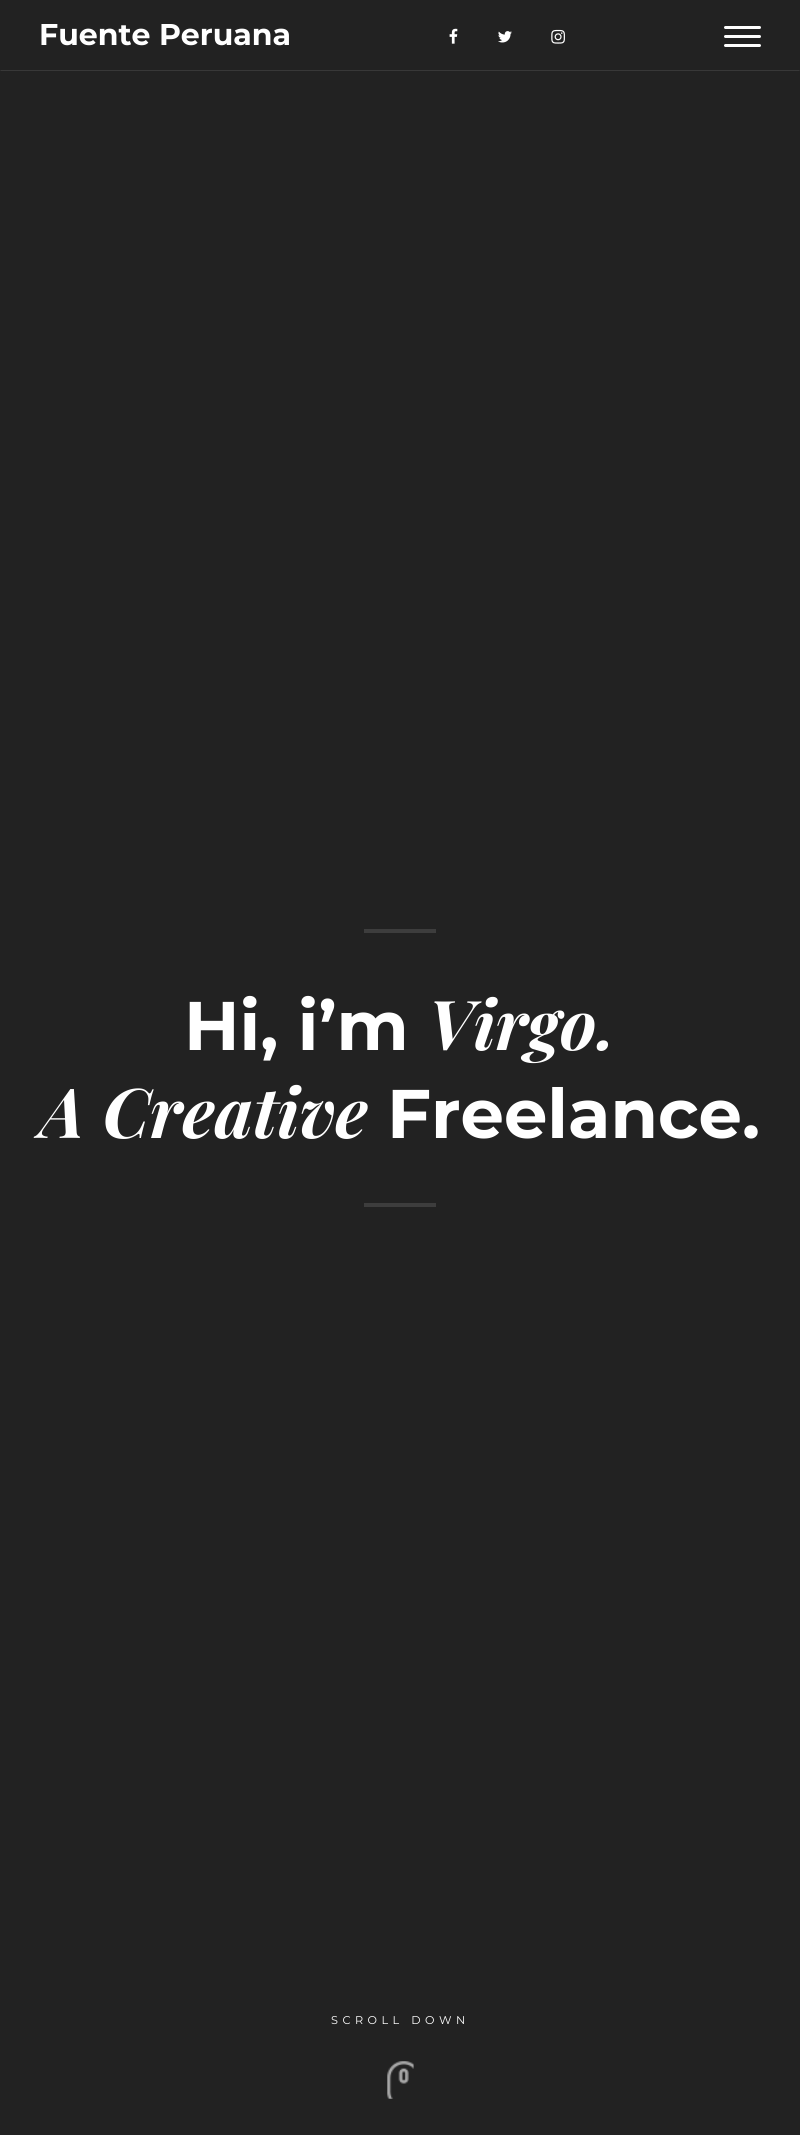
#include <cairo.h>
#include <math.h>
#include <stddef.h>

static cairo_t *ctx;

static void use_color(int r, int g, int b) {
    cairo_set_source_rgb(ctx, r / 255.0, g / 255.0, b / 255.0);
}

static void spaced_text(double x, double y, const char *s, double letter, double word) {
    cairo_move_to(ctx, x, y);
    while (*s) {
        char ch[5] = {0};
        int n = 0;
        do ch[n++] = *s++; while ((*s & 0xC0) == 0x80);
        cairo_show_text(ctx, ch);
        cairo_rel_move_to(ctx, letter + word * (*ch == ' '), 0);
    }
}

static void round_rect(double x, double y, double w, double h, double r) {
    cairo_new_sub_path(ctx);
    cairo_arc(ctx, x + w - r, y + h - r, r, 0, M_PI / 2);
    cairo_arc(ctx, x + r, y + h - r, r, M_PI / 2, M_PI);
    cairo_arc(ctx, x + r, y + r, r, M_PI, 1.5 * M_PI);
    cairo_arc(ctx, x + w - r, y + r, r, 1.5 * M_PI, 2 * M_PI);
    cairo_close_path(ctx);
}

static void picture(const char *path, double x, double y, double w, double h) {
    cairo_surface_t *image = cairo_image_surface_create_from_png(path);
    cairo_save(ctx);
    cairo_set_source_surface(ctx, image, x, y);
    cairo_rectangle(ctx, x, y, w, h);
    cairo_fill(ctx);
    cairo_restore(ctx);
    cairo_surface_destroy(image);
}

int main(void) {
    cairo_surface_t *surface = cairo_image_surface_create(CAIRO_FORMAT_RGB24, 800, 2135);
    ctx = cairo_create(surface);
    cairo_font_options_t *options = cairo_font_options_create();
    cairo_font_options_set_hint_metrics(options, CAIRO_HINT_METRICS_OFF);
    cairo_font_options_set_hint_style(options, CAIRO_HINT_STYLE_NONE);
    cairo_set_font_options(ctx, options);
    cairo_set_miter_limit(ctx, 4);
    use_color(34, 34, 34);
    cairo_paint(ctx);
    use_color(56, 56, 56);
    cairo_new_path(ctx);
    cairo_move_to(ctx, 800, 71);
    cairo_line_to(ctx, 0, 71);
    cairo_line_to(ctx, 1, 70);
    cairo_line_to(ctx, 799, 70);
    cairo_close_path(ctx);
    cairo_fill(ctx);
    cairo_select_font_face(ctx, "Montserrat", CAIRO_FONT_SLANT_NORMAL, CAIRO_FONT_WEIGHT_BOLD);
    cairo_set_font_size(ctx, 30);
    use_color(255, 255, 255);
    cairo_move_to(ctx, 39, 45);
    cairo_show_text(ctx, "Fuente Peruana");
    picture("img1.png", 449, 28, 9, 16);
    picture("img2.png", 498, 31, 14, 12);
    picture("img3.png", 551, 29, 14, 15);
    round_rect(724, 26, 37, 3, 1.5);
    cairo_fill(ctx);
    round_rect(724, 35, 37, 3, 1.5);
    cairo_fill(ctx);
    round_rect(724, 44, 37, 3, 1.5);
    cairo_fill(ctx);
    use_color(61, 61, 61);
    cairo_rectangle(ctx, 364, 929, 72, 4);
    cairo_fill(ctx);
    cairo_set_font_size(ctx, 68.75);
    use_color(255, 255, 255);
    cairo_move_to(ctx, 184, 1050);
    cairo_show_text(ctx, "Hi, i’m");
    cairo_select_font_face(ctx, "Playfair Display", CAIRO_FONT_SLANT_ITALIC, CAIRO_FONT_WEIGHT_BOLD);
    cairo_move_to(ctx, 428, 1050);
    cairo_show_text(ctx, "Virgo.");
    cairo_move_to(ctx, 40, 1138);
    cairo_show_text(ctx, "A Creative");
    cairo_select_font_face(ctx, "Montserrat", CAIRO_FONT_SLANT_NORMAL, CAIRO_FONT_WEIGHT_BOLD);
    cairo_move_to(ctx, 387, 1138);
    cairo_show_text(ctx, "Freelance.");
    use_color(61, 61, 61);
    cairo_rectangle(ctx, 364, 1203, 72, 4);
    cairo_fill(ctx);
    cairo_select_font_face(ctx, "Montserrat", CAIRO_FONT_SLANT_NORMAL, CAIRO_FONT_WEIGHT_NORMAL);
    cairo_set_font_size(ctx, 11.25);
    use_color(255, 255, 255);
    spaced_text(331, 2024, "SCROLL DOWN", 4.5, 0);
    picture("img4.png", 387, 2061, 27, 38);
    cairo_surface_write_to_png(surface, "result.png");
    cairo_font_options_destroy(options);
    cairo_destroy(ctx);
    cairo_surface_destroy(surface);
    return 0;
}
